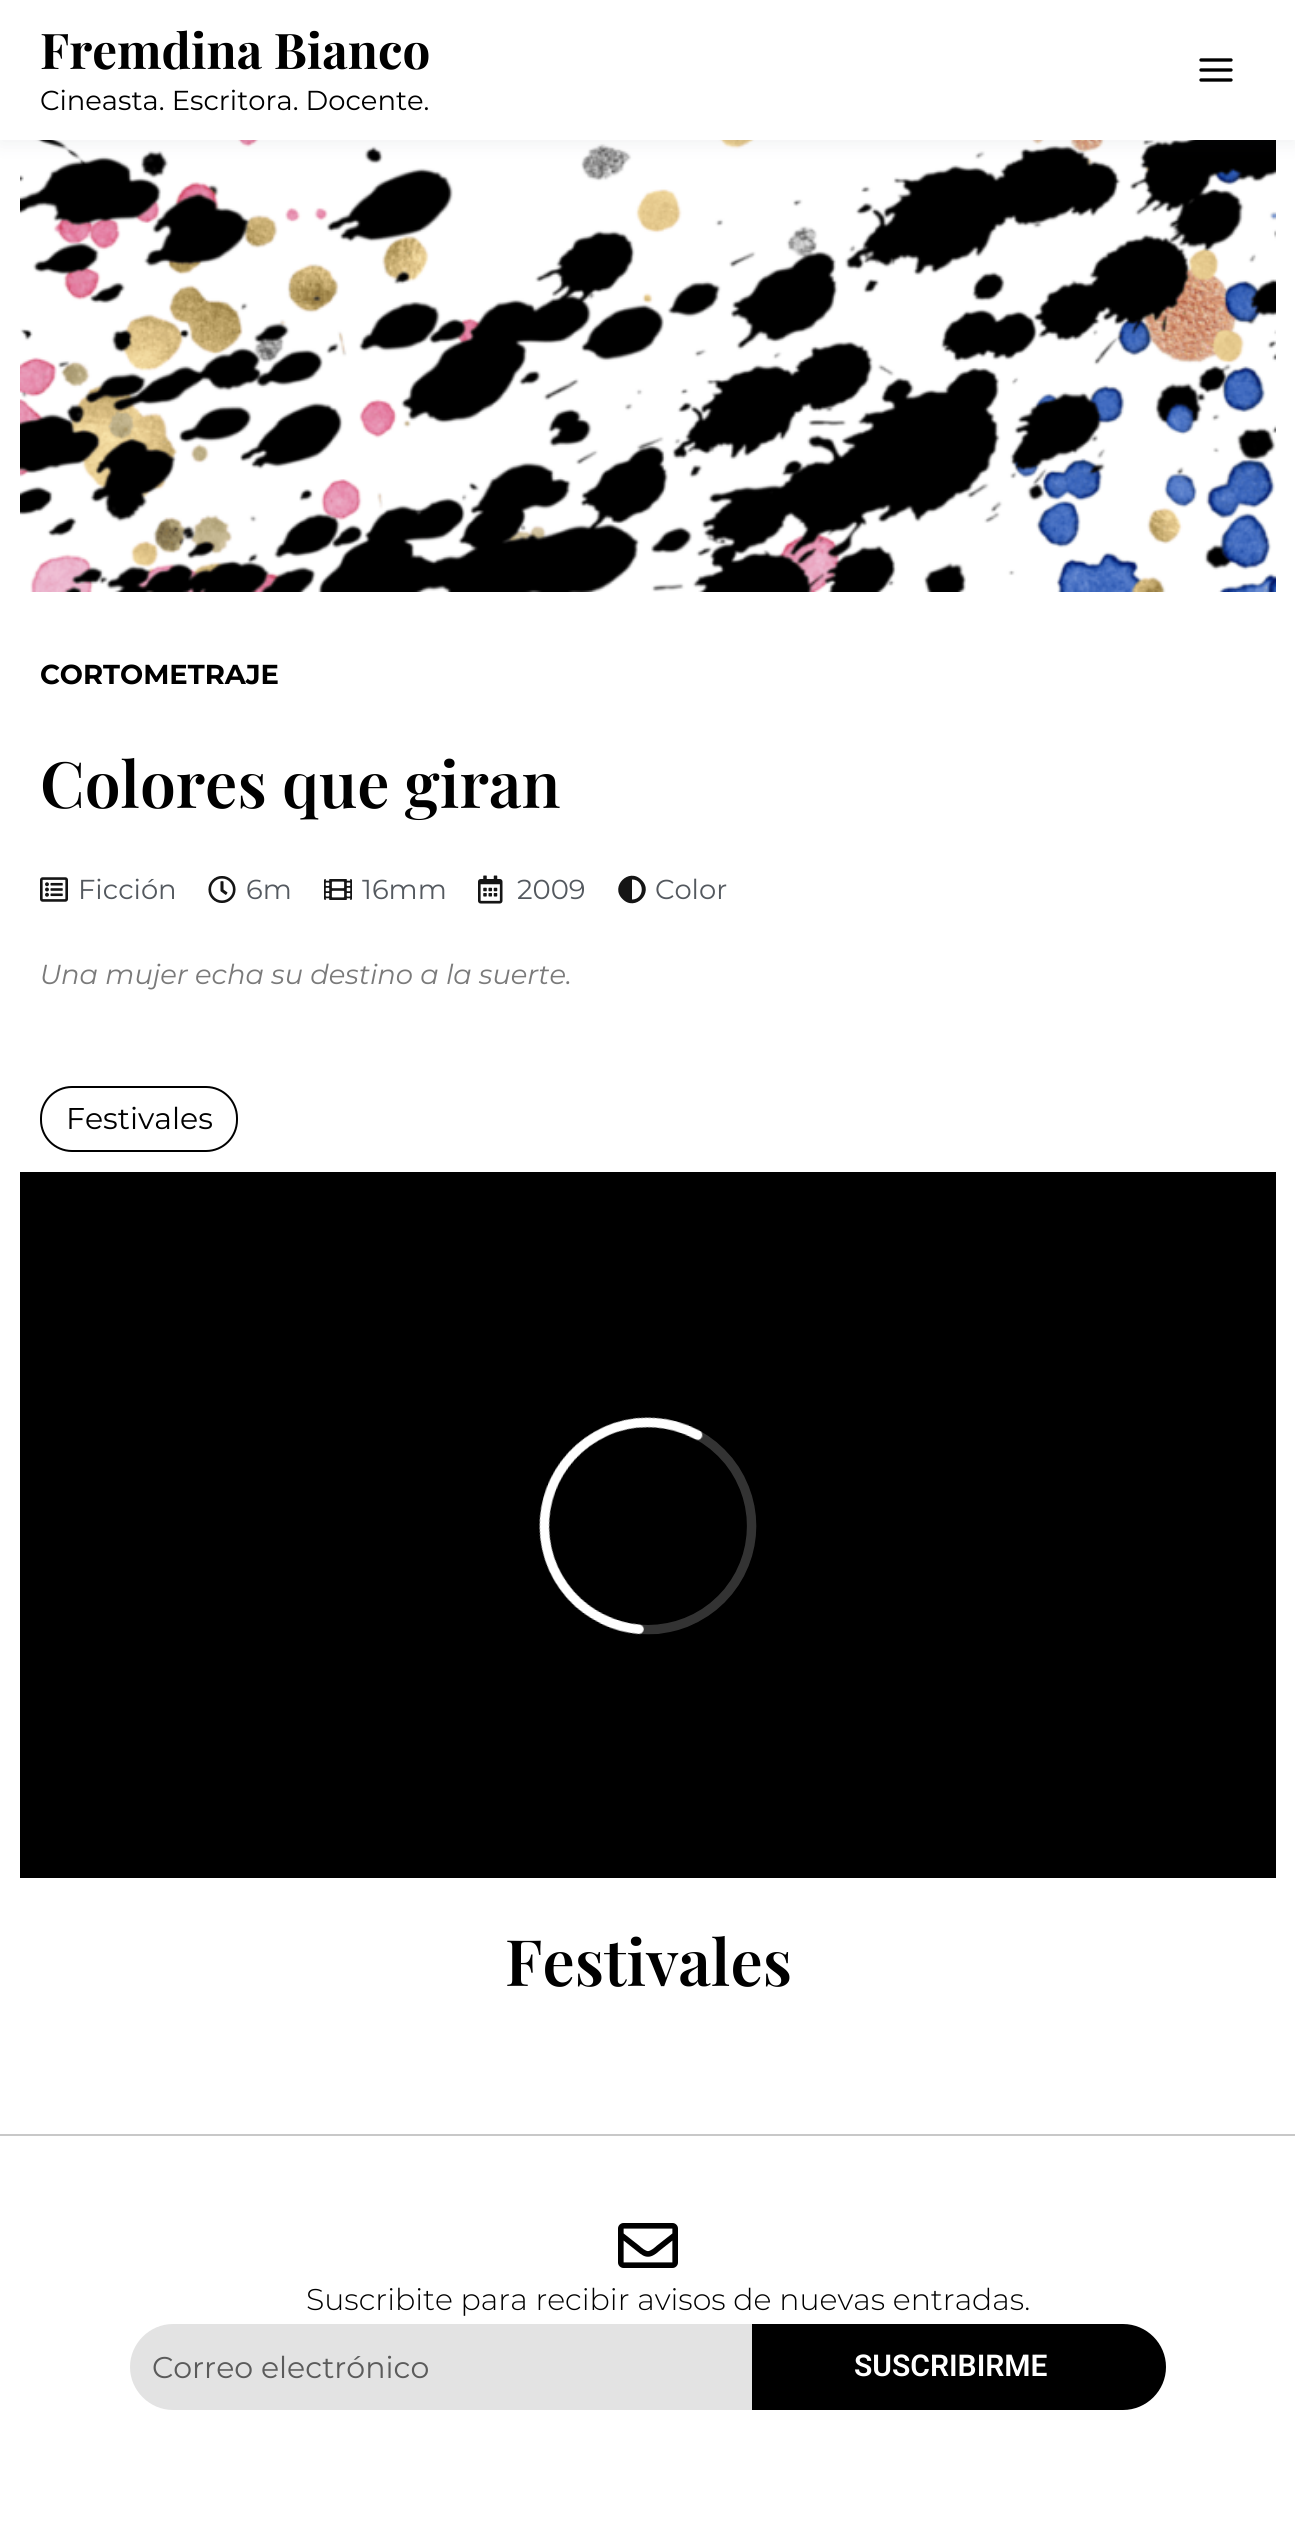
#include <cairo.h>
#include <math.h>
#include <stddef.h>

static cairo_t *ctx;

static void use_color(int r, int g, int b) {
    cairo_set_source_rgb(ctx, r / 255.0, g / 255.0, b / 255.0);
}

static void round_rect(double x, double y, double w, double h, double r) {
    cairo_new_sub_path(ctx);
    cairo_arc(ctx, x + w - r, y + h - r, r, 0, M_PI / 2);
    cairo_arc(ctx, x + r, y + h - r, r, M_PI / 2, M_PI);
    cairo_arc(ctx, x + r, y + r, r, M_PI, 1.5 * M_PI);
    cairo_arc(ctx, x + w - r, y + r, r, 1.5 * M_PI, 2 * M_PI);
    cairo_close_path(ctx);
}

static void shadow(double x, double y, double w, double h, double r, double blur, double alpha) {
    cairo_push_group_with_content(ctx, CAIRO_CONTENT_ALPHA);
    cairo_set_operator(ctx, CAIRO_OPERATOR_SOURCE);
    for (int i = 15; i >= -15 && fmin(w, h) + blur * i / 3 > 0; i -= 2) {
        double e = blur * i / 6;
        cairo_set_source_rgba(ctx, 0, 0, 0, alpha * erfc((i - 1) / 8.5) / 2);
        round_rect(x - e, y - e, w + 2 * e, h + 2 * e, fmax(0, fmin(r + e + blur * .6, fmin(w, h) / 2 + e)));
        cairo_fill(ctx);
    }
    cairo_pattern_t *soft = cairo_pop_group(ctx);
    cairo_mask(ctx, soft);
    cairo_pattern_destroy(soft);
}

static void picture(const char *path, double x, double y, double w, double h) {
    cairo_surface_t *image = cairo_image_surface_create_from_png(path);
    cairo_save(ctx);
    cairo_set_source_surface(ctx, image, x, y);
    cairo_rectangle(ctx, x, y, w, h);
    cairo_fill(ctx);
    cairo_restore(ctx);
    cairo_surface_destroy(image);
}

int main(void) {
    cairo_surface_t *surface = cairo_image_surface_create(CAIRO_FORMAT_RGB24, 1295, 2540);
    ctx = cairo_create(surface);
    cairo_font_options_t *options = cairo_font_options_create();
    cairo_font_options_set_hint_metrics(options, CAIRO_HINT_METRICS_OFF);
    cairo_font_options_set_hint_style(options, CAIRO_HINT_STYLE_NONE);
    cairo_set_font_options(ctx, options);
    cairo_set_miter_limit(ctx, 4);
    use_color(255, 255, 255);
    cairo_paint(ctx);
    picture("img2.png", 20, 140, 1256, 452);
    use_color(36, 50, 66);
    shadow(0, 4, 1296, 140, 0, 10, 0.07);
    use_color(255, 255, 255);
    cairo_rectangle(ctx, 0, 0, 1295, 140);
    cairo_fill(ctx);
    cairo_select_font_face(ctx, "Playfair Display", CAIRO_FONT_SLANT_NORMAL, CAIRO_FONT_WEIGHT_BOLD);
    cairo_set_font_size(ctx, 49.25);
    use_color(0, 0, 0);
    cairo_move_to(ctx, 40, 69);
    cairo_show_text(ctx, "Fremdina Bianco");
    cairo_select_font_face(ctx, "Montserrat", CAIRO_FONT_SLANT_NORMAL, CAIRO_FONT_WEIGHT_NORMAL);
    cairo_set_font_size(ctx, 27.4);
    cairo_move_to(ctx, 40, 110);
    cairo_show_text(ctx, "Cineasta. Escritora. Docente.");
    picture("img1.png", 1199, 58, 34, 24);
    cairo_select_font_face(ctx, "Montserrat", CAIRO_FONT_SLANT_NORMAL, CAIRO_FONT_WEIGHT_BOLD);
    cairo_move_to(ctx, 40, 684);
    cairo_show_text(ctx, "CORTOMETRAJE");
    cairo_select_font_face(ctx, "Playfair Display SemiBold", CAIRO_FONT_SLANT_NORMAL, CAIRO_FONT_WEIGHT_NORMAL);
    cairo_set_font_size(ctx, 64);
    cairo_move_to(ctx, 40, 808);
    cairo_show_text(ctx, "Colores que giran");
    picture("img3.png", 40, 877, 28, 25);
    cairo_select_font_face(ctx, "Montserrat", CAIRO_FONT_SLANT_NORMAL, CAIRO_FONT_WEIGHT_NORMAL);
    cairo_set_font_size(ctx, 27.4);
    use_color(84, 89, 95);
    cairo_move_to(ctx, 78, 899);
    cairo_show_text(ctx, "Ficción");
    picture("img4.png", 208, 876, 28, 27);
    cairo_move_to(ctx, 246, 899);
    cairo_show_text(ctx, "6m");
    picture("img5.png", 324, 879, 28, 21);
    cairo_move_to(ctx, 362, 899);
    cairo_show_text(ctx, "16mm");
    picture("img6.png", 478, 875, 25, 29);
    cairo_move_to(ctx, 517, 899);
    cairo_show_text(ctx, "2009");
    use_color(21, 21, 21);
    cairo_new_path(ctx);
    cairo_move_to(ctx, 622.5, 899);
    cairo_curve_to(ctx, 609.5, 886.5, 629, 867, 641.5, 880);
    cairo_curve_to(ctx, 654.5, 892.5, 635, 912, 622.5, 899);
    cairo_close_path(ctx);
    cairo_move_to(ctx, 632, 899.5);
    cairo_curve_to(ctx, 645, 899.5, 645, 879.5, 632, 879.5);
    cairo_close_path(ctx);
    cairo_fill(ctx);
    use_color(84, 89, 95);
    cairo_move_to(ctx, 655, 899);
    cairo_show_text(ctx, "Color");
    cairo_select_font_face(ctx, "Montserrat", CAIRO_FONT_SLANT_ITALIC, CAIRO_FONT_WEIGHT_NORMAL);
    use_color(122, 122, 122);
    cairo_move_to(ctx, 40, 984);
    cairo_show_text(ctx, "Una mujer echa su destino a la suerte.");
    round_rect(41, 1087, 196, 64, 31);
    use_color(0, 0, 0);
    cairo_stroke(ctx);
    cairo_select_font_face(ctx, "Montserrat", CAIRO_FONT_SLANT_NORMAL, CAIRO_FONT_WEIGHT_NORMAL);
    cairo_set_font_size(ctx, 30);
    cairo_move_to(ctx, 66, 1129);
    cairo_show_text(ctx, "Festivales");
    cairo_rectangle(ctx, 20, 1172, 1256, 706);
    cairo_fill(ctx);
    picture("img7.png", 539, 1417, 218, 218);
    cairo_select_font_face(ctx, "Playfair Display SemiBold", CAIRO_FONT_SLANT_NORMAL, CAIRO_FONT_WEIGHT_NORMAL);
    cairo_set_font_size(ctx, 64);
    cairo_move_to(ctx, 505, 1986);
    cairo_show_text(ctx, "Festivales");
    use_color(200, 200, 200);
    cairo_rectangle(ctx, 0, 2134, 1295, 2);
    cairo_fill(ctx);
    picture("img8.png", 618, 2223, 60, 45);
    cairo_select_font_face(ctx, "Montserrat Light", CAIRO_FONT_SLANT_NORMAL, CAIRO_FONT_WEIGHT_NORMAL);
    cairo_set_font_size(ctx, 30);
    use_color(0, 0, 0);
    cairo_move_to(ctx, 306, 2310);
    cairo_show_text(ctx, "Suscribite para recibir avisos de nuevas entradas.");
    use_color(227, 227, 227);
    cairo_new_path(ctx);
    cairo_move_to(ctx, 173, 2324);
    cairo_line_to(ctx, 752, 2324);
    cairo_line_to(ctx, 752, 2410);
    cairo_line_to(ctx, 173, 2410);
    cairo_curve_to(ctx, 149.5, 2410, 130, 2390.5, 130, 2367);
    cairo_curve_to(ctx, 130, 2343.5, 149.5, 2324, 173, 2324);
    cairo_close_path(ctx);
    cairo_fill(ctx);
    cairo_select_font_face(ctx, "Montserrat", CAIRO_FONT_SLANT_NORMAL, CAIRO_FONT_WEIGHT_NORMAL);
    use_color(91, 91, 91);
    cairo_move_to(ctx, 152, 2378);
    cairo_show_text(ctx, "Correo electrónico");
    use_color(0, 0, 0);
    cairo_new_path(ctx);
    cairo_move_to(ctx, 754, 2326);
    cairo_line_to(ctx, 1123, 2326);
    cairo_curve_to(ctx, 1145.5, 2326, 1164, 2344.5, 1164, 2367);
    cairo_curve_to(ctx, 1164, 2389.5, 1145.5, 2408, 1123, 2408);
    cairo_line_to(ctx, 754, 2408);
    cairo_close_path(ctx);
    cairo_fill_preserve(ctx);
    cairo_set_line_width(ctx, 4);
    cairo_stroke(ctx);
    cairo_select_font_face(ctx, "Roboto SemiBold", CAIRO_FONT_SLANT_NORMAL, CAIRO_FONT_WEIGHT_NORMAL);
    use_color(255, 255, 255);
    cairo_move_to(ctx, 854, 2376);
    cairo_show_text(ctx, "SUSCRIBIRME");
    cairo_surface_write_to_png(surface, "result.png");
    cairo_font_options_destroy(options);
    cairo_destroy(ctx);
    cairo_surface_destroy(surface);
    return 0;
}
